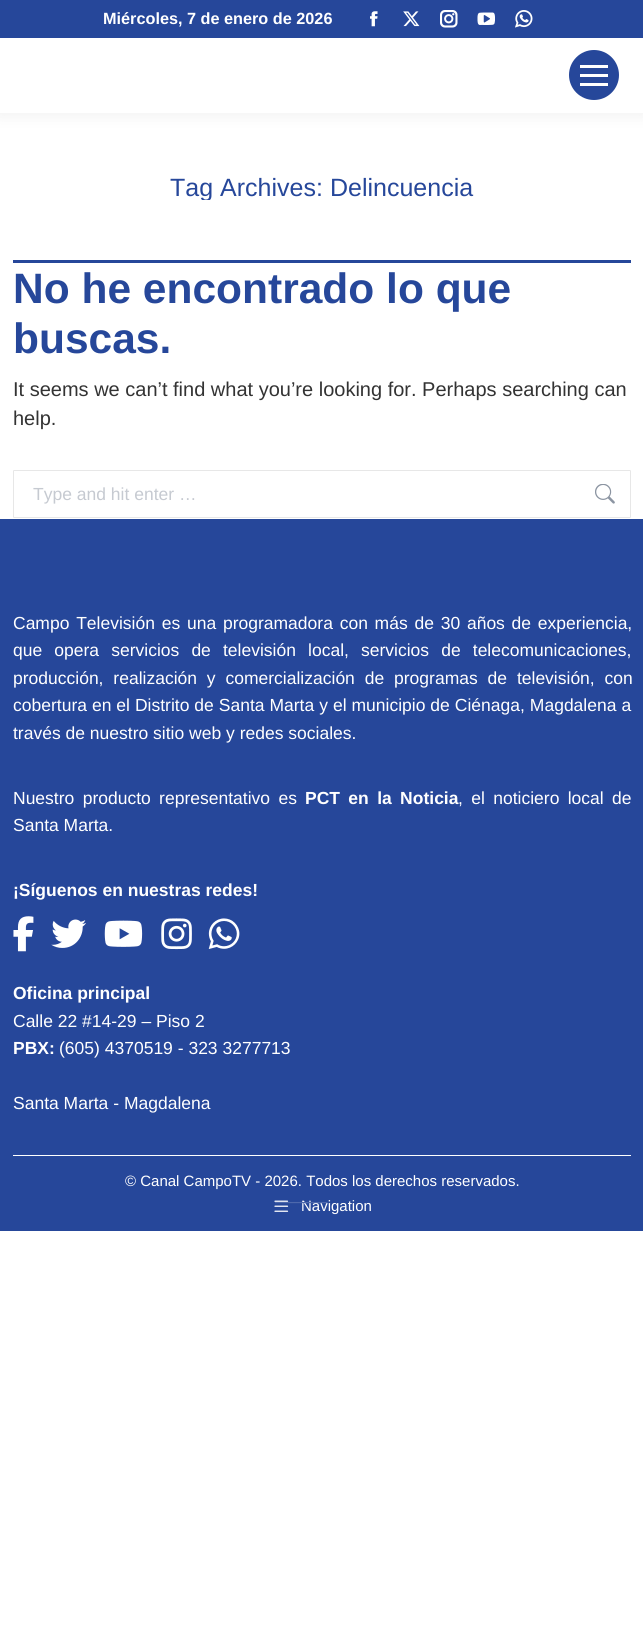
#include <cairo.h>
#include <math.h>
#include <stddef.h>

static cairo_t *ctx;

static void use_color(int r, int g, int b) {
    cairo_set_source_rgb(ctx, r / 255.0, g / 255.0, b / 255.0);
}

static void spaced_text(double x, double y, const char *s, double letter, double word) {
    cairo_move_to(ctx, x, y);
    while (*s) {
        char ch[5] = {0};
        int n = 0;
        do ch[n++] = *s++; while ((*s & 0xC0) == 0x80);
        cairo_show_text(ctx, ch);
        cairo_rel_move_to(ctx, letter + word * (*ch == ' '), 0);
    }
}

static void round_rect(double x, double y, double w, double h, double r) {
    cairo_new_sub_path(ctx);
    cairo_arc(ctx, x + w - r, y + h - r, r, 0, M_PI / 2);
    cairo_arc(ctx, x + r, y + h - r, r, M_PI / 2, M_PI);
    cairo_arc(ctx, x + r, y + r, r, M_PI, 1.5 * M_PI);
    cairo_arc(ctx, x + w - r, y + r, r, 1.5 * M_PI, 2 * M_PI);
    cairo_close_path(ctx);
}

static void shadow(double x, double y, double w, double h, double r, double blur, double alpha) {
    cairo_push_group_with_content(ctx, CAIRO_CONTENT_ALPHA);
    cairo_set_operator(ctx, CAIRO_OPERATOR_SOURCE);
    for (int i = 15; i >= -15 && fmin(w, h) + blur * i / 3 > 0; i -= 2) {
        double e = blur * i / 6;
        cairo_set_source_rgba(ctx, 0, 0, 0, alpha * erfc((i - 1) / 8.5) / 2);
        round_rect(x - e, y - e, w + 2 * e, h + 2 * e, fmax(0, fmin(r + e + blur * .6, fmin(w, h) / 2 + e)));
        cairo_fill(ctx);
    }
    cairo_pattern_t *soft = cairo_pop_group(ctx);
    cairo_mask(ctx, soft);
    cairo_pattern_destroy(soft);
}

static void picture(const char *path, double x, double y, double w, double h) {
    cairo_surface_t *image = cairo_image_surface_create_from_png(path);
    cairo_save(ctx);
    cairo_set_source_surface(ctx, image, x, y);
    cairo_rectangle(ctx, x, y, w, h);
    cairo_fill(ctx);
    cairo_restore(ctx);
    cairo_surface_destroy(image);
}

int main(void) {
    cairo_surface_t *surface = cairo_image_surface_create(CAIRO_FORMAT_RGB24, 643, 1646);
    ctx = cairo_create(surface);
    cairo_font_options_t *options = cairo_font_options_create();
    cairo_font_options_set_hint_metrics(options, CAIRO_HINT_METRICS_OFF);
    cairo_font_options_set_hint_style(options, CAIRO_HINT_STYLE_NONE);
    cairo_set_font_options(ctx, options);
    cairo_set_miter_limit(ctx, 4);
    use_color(255, 255, 255);
    cairo_paint(ctx);
    use_color(0, 0, 0);
    shadow(-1, -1, 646, 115, 0, 9.5, 0.07);
    use_color(255, 255, 255);
    cairo_rectangle(ctx, 0, 38, 643, 75);
    cairo_fill(ctx);
    use_color(38, 71, 154);
    cairo_rectangle(ctx, 0, 0, 643, 38);
    cairo_fill(ctx);
    cairo_select_font_face(ctx, "Liberation Sans", CAIRO_FONT_SLANT_NORMAL, CAIRO_FONT_WEIGHT_BOLD);
    cairo_set_font_size(ctx, 16.25);
    use_color(255, 255, 255);
    cairo_move_to(ctx, 103, 24);
    cairo_show_text(ctx, "Miércoles, 7 de enero de 2026");
    picture("img1.png", 370, 11, 8, 16);
    picture("img2.png", 403, 11, 17, 16);
    picture("img3.png", 440, 10, 18, 18);
    picture("img4.png", 477, 12, 18, 13);
    picture("img5.png", 515, 10, 18, 18);
    use_color(38, 71, 154);
    cairo_arc(ctx, 594, 75, 25, 0, 2 * M_PI);
    cairo_fill(ctx);
    use_color(255, 255, 255);
    cairo_rectangle(ctx, 580, 65, 28, 3);
    cairo_fill(ctx);
    cairo_rectangle(ctx, 580, 74, 28, 3);
    cairo_fill(ctx);
    cairo_rectangle(ctx, 580, 83, 28, 3);
    cairo_fill(ctx);
    cairo_save(ctx);
    cairo_rectangle(ctx, 170, 175, 304, 25);
    cairo_clip(ctx);
    cairo_select_font_face(ctx, "Liberation Sans", CAIRO_FONT_SLANT_NORMAL, CAIRO_FONT_WEIGHT_NORMAL);
    cairo_set_font_size(ctx, 25);
    use_color(38, 71, 154);
    cairo_move_to(ctx, 170, 196);
    cairo_show_text(ctx, "Tag Archives:");
    cairo_restore(ctx);
    cairo_select_font_face(ctx, "Liberation Sans", CAIRO_FONT_SLANT_NORMAL, CAIRO_FONT_WEIGHT_NORMAL);
    cairo_set_font_size(ctx, 25);
    use_color(38, 71, 154);
    cairo_move_to(ctx, 330, 196);
    cairo_show_text(ctx, "Delincuencia");
    cairo_rectangle(ctx, 13, 260, 618, 3);
    cairo_fill(ctx);
    cairo_select_font_face(ctx, "Liberation Sans", CAIRO_FONT_SLANT_NORMAL, CAIRO_FONT_WEIGHT_BOLD);
    cairo_set_font_size(ctx, 42.5);
    cairo_move_to(ctx, 13, 303);
    cairo_show_text(ctx, "No he encontrado lo que");
    cairo_move_to(ctx, 13, 353);
    cairo_show_text(ctx, "buscas.");
    cairo_select_font_face(ctx, "Liberation Sans", CAIRO_FONT_SLANT_NORMAL, CAIRO_FONT_WEIGHT_NORMAL);
    cairo_set_font_size(ctx, 20);
    use_color(51, 51, 51);
    cairo_move_to(ctx, 13, 396);
    cairo_show_text(ctx, "It seems we can’t find what you’re looking for. Perhaps searching can");
    cairo_move_to(ctx, 13, 425);
    cairo_show_text(ctx, "help.");
    round_rect(13.5, 470.5, 617, 47, 0.5);
    use_color(231, 231, 231);
    cairo_set_line_width(ctx, 1);
    cairo_stroke(ctx);
    cairo_set_font_size(ctx, 17.5);
    use_color(198, 202, 209);
    cairo_move_to(ctx, 33, 500);
    cairo_show_text(ctx, "Type and hit enter …");
    picture("img6.png", 595, 484, 20, 20);
    use_color(38, 71, 154);
    cairo_rectangle(ctx, 0, 519, 643, 712);
    cairo_fill(ctx);
    use_color(255, 255, 255);
    spaced_text(13, 629, "Campo Televisión es una programadora con más de 30 años de experiencia,", 0, 1.9);
    spaced_text(13, 656, "que opera servicios de televisión local, servicios de telecomunicaciones,", 0, 7.25);
    spaced_text(13, 684, "producción, realización y comercialización de programas de televisión, con", 0, 5);
    spaced_text(13, 711, "cobertura en el Distrito de Santa Marta y el municipio de Ciénaga, Magdalena a", 0, 0.1);
    cairo_move_to(ctx, 13, 739);
    cairo_show_text(ctx, "través de nuestro sitio web y redes sociales.");
    spaced_text(13, 804, "Nuestro producto representativo es", 0, 3.5);
    cairo_select_font_face(ctx, "Liberation Sans", CAIRO_FONT_SLANT_NORMAL, CAIRO_FONT_WEIGHT_BOLD);
    spaced_text(305, 804, "PCT en la Noticia", 0, 3.5);
    cairo_select_font_face(ctx, "Liberation Sans", CAIRO_FONT_SLANT_NORMAL, CAIRO_FONT_WEIGHT_NORMAL);
    spaced_text(458, 804, ", el noticiero local de", 0, 3.5);
    cairo_move_to(ctx, 13, 831);
    cairo_show_text(ctx, "Santa Marta.");
    cairo_select_font_face(ctx, "Liberation Sans", CAIRO_FONT_SLANT_NORMAL, CAIRO_FONT_WEIGHT_BOLD);
    cairo_move_to(ctx, 13, 896);
    cairo_show_text(ctx, "¡Síguenos en nuestras redes!");
    picture("img7.png", 13, 916, 21, 36);
    picture("img8.png", 51, 919, 35, 29);
    picture("img9.png", 104, 920, 39, 27);
    picture("img10.png", 161, 918, 31, 32);
    picture("img11.png", 208, 918, 32, 31);
    cairo_move_to(ctx, 13, 999);
    cairo_show_text(ctx, "Oficina principal");
    cairo_select_font_face(ctx, "Liberation Sans", CAIRO_FONT_SLANT_NORMAL, CAIRO_FONT_WEIGHT_NORMAL);
    cairo_move_to(ctx, 13, 1027);
    cairo_show_text(ctx, "Calle 22 #14-29 – Piso 2");
    cairo_select_font_face(ctx, "Liberation Sans", CAIRO_FONT_SLANT_NORMAL, CAIRO_FONT_WEIGHT_BOLD);
    cairo_move_to(ctx, 13, 1054);
    cairo_show_text(ctx, "PBX:");
    cairo_select_font_face(ctx, "Liberation Sans", CAIRO_FONT_SLANT_NORMAL, CAIRO_FONT_WEIGHT_NORMAL);
    cairo_move_to(ctx, 59, 1054);
    cairo_show_text(ctx, "(605) 4370519 - 323 3277713");
    cairo_move_to(ctx, 13, 1109);
    cairo_show_text(ctx, "Santa Marta - Magdalena");
    cairo_rectangle(ctx, 13, 1155, 618, 1);
    cairo_fill(ctx);
    cairo_set_font_size(ctx, 15);
    cairo_move_to(ctx, 125, 1186);
    cairo_show_text(ctx, "© Canal CampoTV - 2026. Todos los derechos reservados.");
    picture("img12.png", 274, 1200, 15, 12);
    cairo_move_to(ctx, 301, 1211);
    cairo_show_text(ctx, "Navigation");
    cairo_set_font_size(ctx, 17.5);
    use_color(77, 104, 172);
    cairo_move_to(ctx, 275, 1207);
    cairo_show_text(ctx, "———");
    cairo_surface_write_to_png(surface, "result.png");
    cairo_font_options_destroy(options);
    cairo_destroy(ctx);
    cairo_surface_destroy(surface);
    return 0;
}
